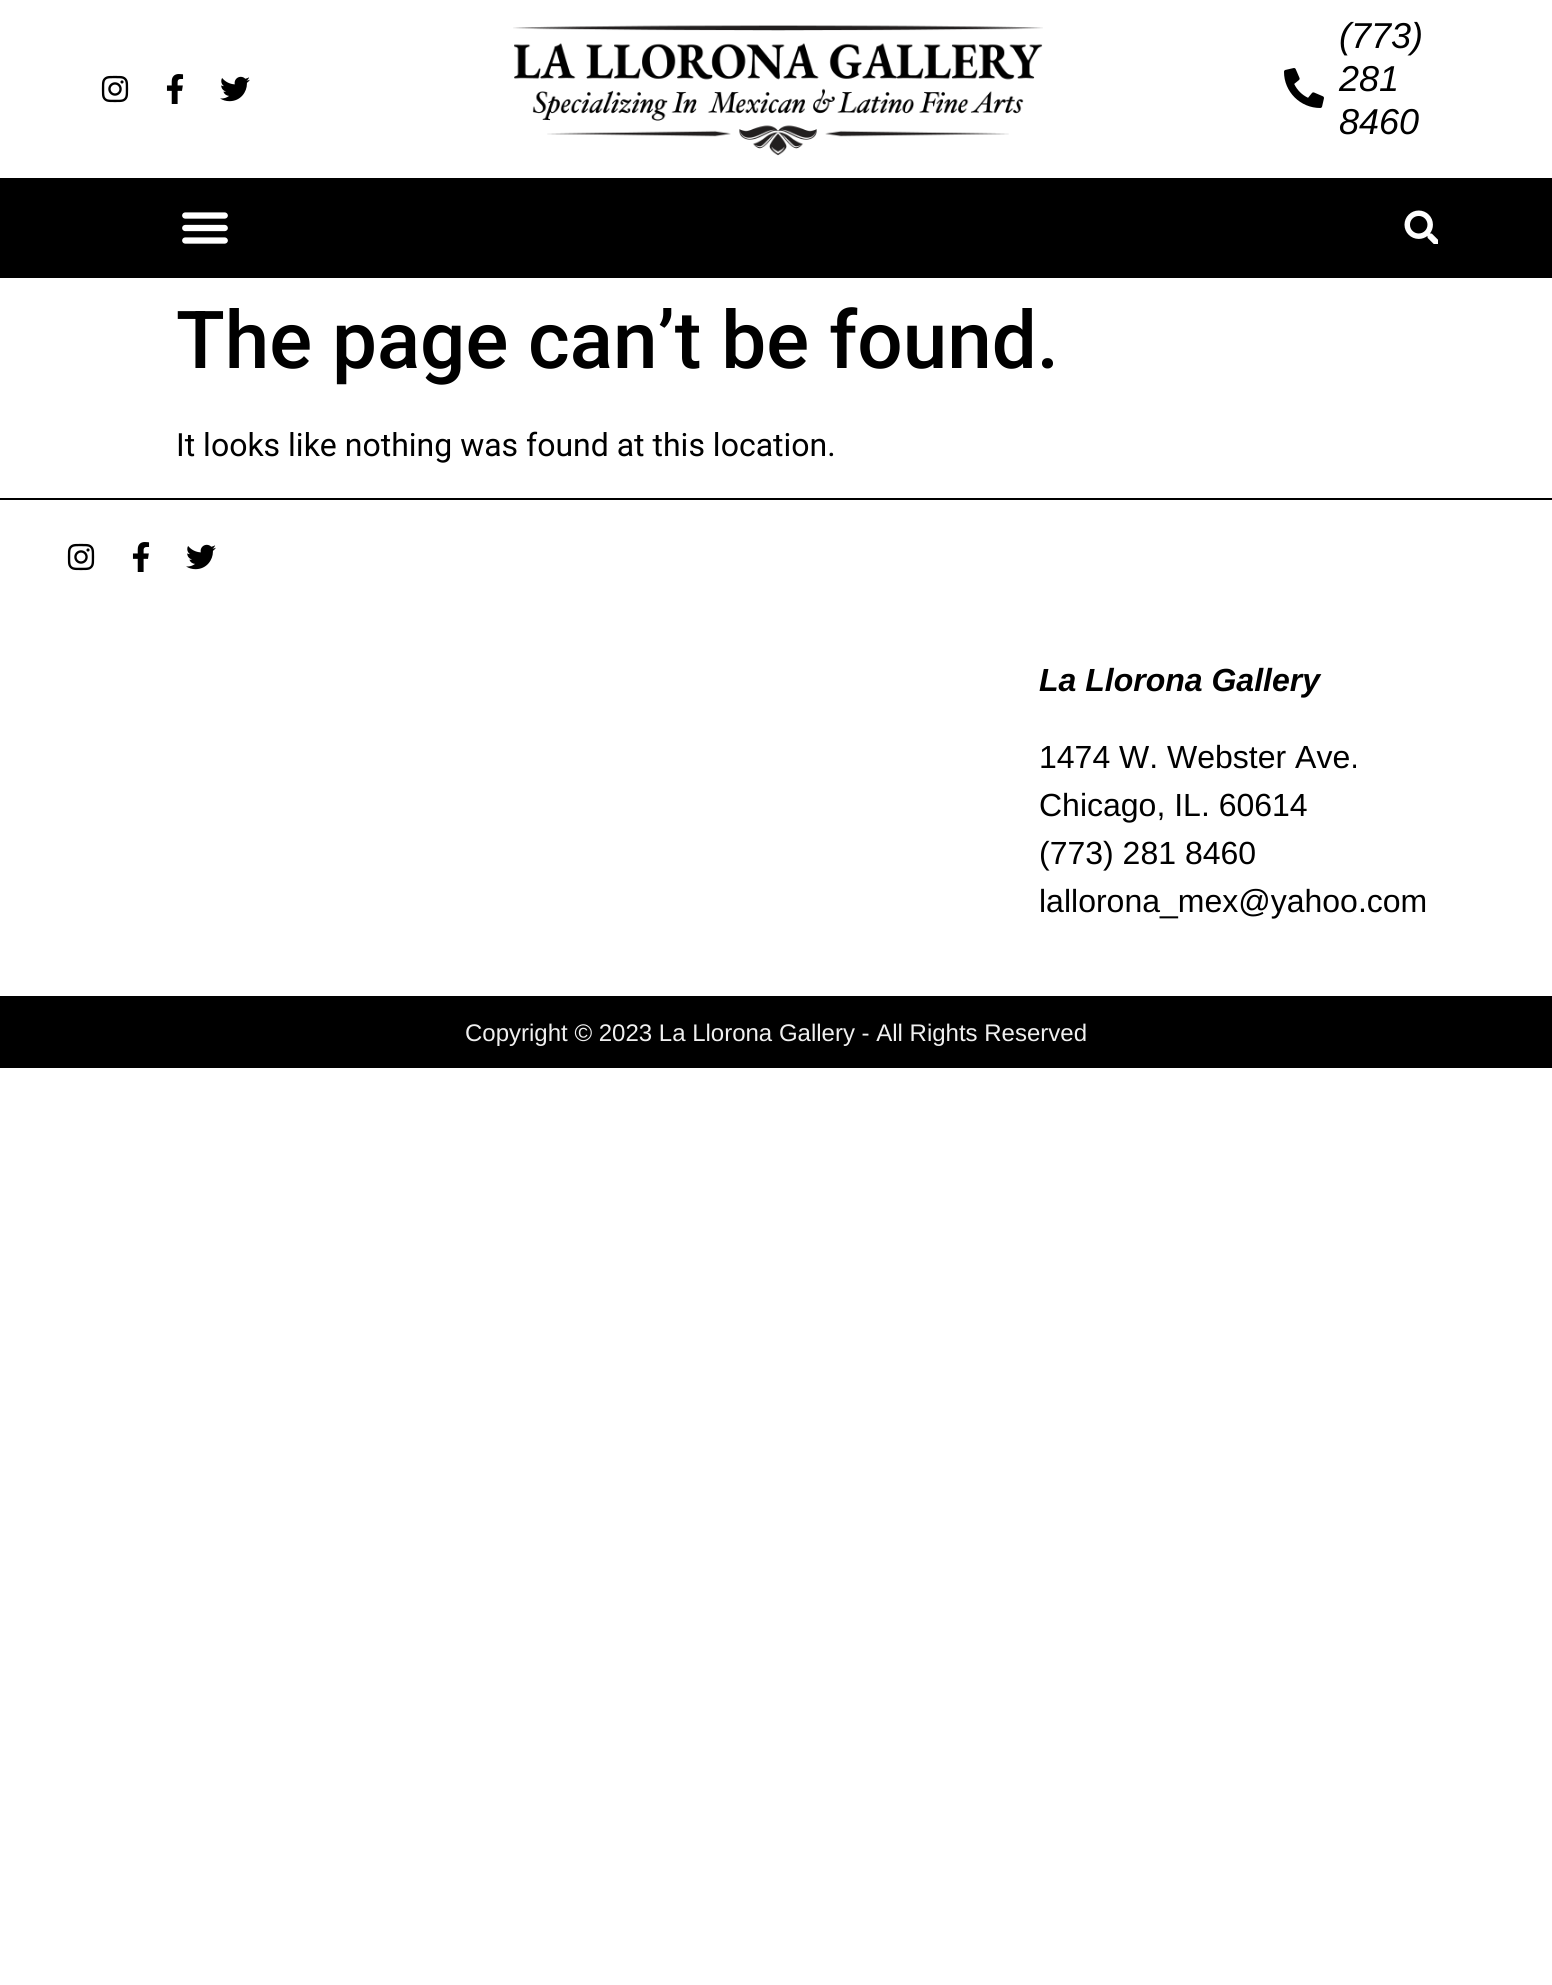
#include <cairo.h>
#include <math.h>
#include <stddef.h>

static cairo_t *ctx;

static void use_color(int r, int g, int b) {
    cairo_set_source_rgb(ctx, r / 255.0, g / 255.0, b / 255.0);
}

static void picture(const char *path, double x, double y, double w, double h) {
    cairo_surface_t *image = cairo_image_surface_create_from_png(path);
    cairo_save(ctx);
    cairo_set_source_surface(ctx, image, x, y);
    cairo_rectangle(ctx, x, y, w, h);
    cairo_fill(ctx);
    cairo_restore(ctx);
    cairo_surface_destroy(image);
}

int main(void) {
    cairo_surface_t *surface = cairo_image_surface_create(CAIRO_FORMAT_RGB24, 1552, 1985);
    ctx = cairo_create(surface);
    cairo_font_options_t *options = cairo_font_options_create();
    cairo_font_options_set_hint_metrics(options, CAIRO_HINT_METRICS_OFF);
    cairo_font_options_set_hint_style(options, CAIRO_HINT_STYLE_NONE);
    cairo_set_font_options(ctx, options);
    cairo_set_miter_limit(ctx, 4);
    use_color(255, 255, 255);
    cairo_paint(ctx);
    picture("img1.png", 101, 75, 28, 28);
    picture("img2.png", 166, 74, 18, 30);
    picture("img3.png", 220, 76, 30, 26);
    picture("img4.png", 513, 25, 530, 131);
    picture("img5.png", 1284, 68, 40, 40);
    cairo_select_font_face(ctx, "Liberation Sans", CAIRO_FONT_SLANT_ITALIC, CAIRO_FONT_WEIGHT_NORMAL);
    cairo_set_font_size(ctx, 36);
    use_color(0, 0, 0);
    cairo_move_to(ctx, 1339, 48);
    cairo_show_text(ctx, "(773)");
    cairo_move_to(ctx, 1339, 91);
    cairo_show_text(ctx, "281");
    cairo_move_to(ctx, 1339, 134);
    cairo_show_text(ctx, "8460");
    cairo_rectangle(ctx, 0, 178, 1552, 100);
    cairo_fill(ctx);
    picture("img6.png", 182, 212, 46, 32);
    picture("img7.png", 1404, 210, 34, 34);
    cairo_select_font_face(ctx, "Roboto Medium", CAIRO_FONT_SLANT_NORMAL, CAIRO_FONT_WEIGHT_NORMAL);
    cairo_set_font_size(ctx, 80);
    cairo_move_to(ctx, 176, 368);
    cairo_show_text(ctx, "The page can’t be found.");
    cairo_select_font_face(ctx, "Roboto", CAIRO_FONT_SLANT_NORMAL, CAIRO_FONT_WEIGHT_NORMAL);
    cairo_set_font_size(ctx, 32);
    cairo_move_to(ctx, 176, 456);
    cairo_show_text(ctx, "It looks like nothing was found at this location.");
    cairo_rectangle(ctx, 0, 498, 1552, 2);
    cairo_fill(ctx);
    picture("img1.png", 67, 543, 28, 28);
    picture("img2.png", 132, 542, 18, 30);
    picture("img3.png", 186, 544, 30, 26);
    cairo_select_font_face(ctx, "Liberation Sans", CAIRO_FONT_SLANT_ITALIC, CAIRO_FONT_WEIGHT_BOLD);
    cairo_move_to(ctx, 1039, 691);
    cairo_show_text(ctx, "La Llorona Gallery");
    cairo_select_font_face(ctx, "Liberation Sans", CAIRO_FONT_SLANT_NORMAL, CAIRO_FONT_WEIGHT_NORMAL);
    cairo_move_to(ctx, 1039, 768);
    cairo_show_text(ctx, "1474 W. Webster Ave.");
    cairo_move_to(ctx, 1039, 816);
    cairo_show_text(ctx, "Chicago, IL. 60614");
    cairo_move_to(ctx, 1039, 864);
    cairo_show_text(ctx, "(773) 281 8460");
    cairo_move_to(ctx, 1039, 912);
    cairo_show_text(ctx, "lallorona_mex@yahoo.com");
    cairo_rectangle(ctx, 0, 996, 1552, 72);
    cairo_fill(ctx);
    cairo_set_font_size(ctx, 24);
    use_color(240, 240, 240);
    cairo_move_to(ctx, 465, 1041);
    cairo_show_text(ctx, "Copyright © 2023 La Llorona Gallery - All Rights Reserved");
    cairo_surface_write_to_png(surface, "result.png");
    cairo_font_options_destroy(options);
    cairo_destroy(ctx);
    cairo_surface_destroy(surface);
    return 0;
}
